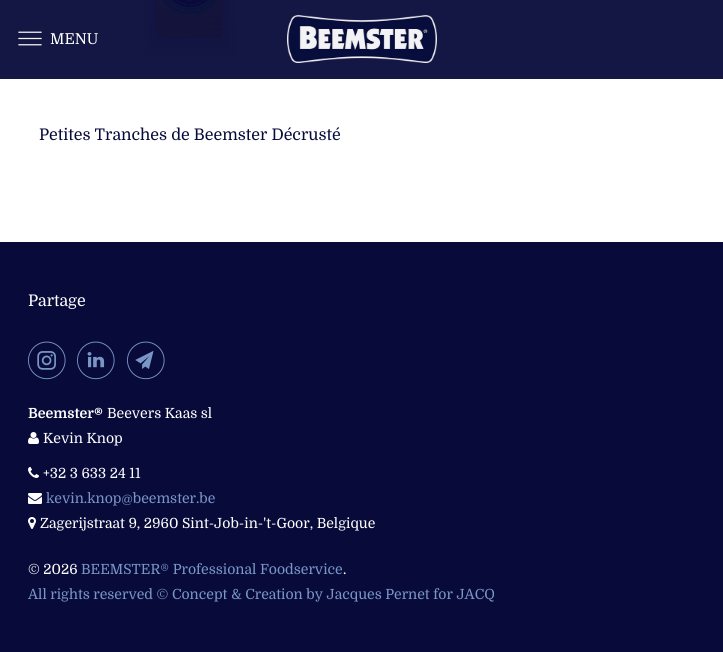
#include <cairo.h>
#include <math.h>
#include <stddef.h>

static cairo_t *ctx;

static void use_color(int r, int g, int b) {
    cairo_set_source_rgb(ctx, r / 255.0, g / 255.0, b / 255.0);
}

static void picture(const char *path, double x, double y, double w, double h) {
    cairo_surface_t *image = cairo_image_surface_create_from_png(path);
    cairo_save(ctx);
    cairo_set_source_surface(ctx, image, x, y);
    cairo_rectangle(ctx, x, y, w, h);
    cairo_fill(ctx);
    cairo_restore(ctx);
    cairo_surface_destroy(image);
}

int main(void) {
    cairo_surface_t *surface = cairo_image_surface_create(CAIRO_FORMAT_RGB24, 723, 652);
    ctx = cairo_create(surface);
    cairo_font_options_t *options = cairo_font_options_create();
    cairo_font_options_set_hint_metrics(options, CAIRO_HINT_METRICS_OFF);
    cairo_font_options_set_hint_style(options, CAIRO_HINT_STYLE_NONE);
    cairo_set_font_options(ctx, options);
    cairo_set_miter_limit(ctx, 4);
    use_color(255, 255, 255);
    cairo_paint(ctx);
    use_color(20, 23, 68);
    cairo_rectangle(ctx, 0, 0, 723, 79);
    cairo_fill(ctx);
    picture("img1.png", 18, 31, 24, 15);
    cairo_select_font_face(ctx, "Domine", CAIRO_FONT_SLANT_NORMAL, CAIRO_FONT_WEIGHT_NORMAL);
    cairo_set_font_size(ctx, 15);
    use_color(255, 255, 255);
    cairo_move_to(ctx, 50, 44);
    cairo_show_text(ctx, "MENU");
    picture("img2.png", 287, 15, 150, 48);
    picture("img3.png", 143, 0, 94, 57);
    cairo_set_font_size(ctx, 16);
    use_color(8, 11, 58);
    cairo_move_to(ctx, 39, 140);
    cairo_show_text(ctx, "Petites Tranches de Beemster Décrusté");
    cairo_rectangle(ctx, 0, 242, 723, 410);
    cairo_fill(ctx);
    use_color(255, 255, 255);
    cairo_move_to(ctx, 28, 306);
    cairo_show_text(ctx, "Partage");
    picture("img4.png", 28, 341, 38, 39);
    picture("img5.png", 77, 341, 38, 39);
    picture("img6.png", 127, 341, 38, 39);
    cairo_select_font_face(ctx, "Domine", CAIRO_FONT_SLANT_NORMAL, CAIRO_FONT_WEIGHT_BOLD);
    cairo_set_font_size(ctx, 14);
    cairo_move_to(ctx, 28, 418);
    cairo_show_text(ctx, "Beemster®");
    cairo_select_font_face(ctx, "Domine", CAIRO_FONT_SLANT_NORMAL, CAIRO_FONT_WEIGHT_NORMAL);
    cairo_move_to(ctx, 107, 418);
    cairo_show_text(ctx, "Beevers Kaas sl");
    picture("img7.png", 28, 432, 11, 12);
    cairo_move_to(ctx, 43, 443);
    cairo_show_text(ctx, "Kevin Knop");
    picture("img8.png", 28, 467, 11, 11);
    cairo_move_to(ctx, 43, 478);
    cairo_show_text(ctx, "+32 3 633 24 11");
    picture("img9.png", 28, 493, 14, 11);
    use_color(121, 150, 199);
    cairo_move_to(ctx, 46, 503);
    cairo_show_text(ctx, "kevin.knop@beemster.be");
    picture("img10.png", 28, 517, 8, 12);
    use_color(255, 255, 255);
    cairo_move_to(ctx, 40, 528);
    cairo_show_text(ctx, "Zagerijstraat 9, 2960 Sint-Job-in-'t-Goor, Belgique");
    cairo_move_to(ctx, 28, 574);
    cairo_show_text(ctx, "© 2026");
    use_color(121, 150, 199);
    cairo_move_to(ctx, 81, 574);
    cairo_show_text(ctx, "BEEMSTER® Professional Foodservice");
    use_color(255, 255, 255);
    cairo_move_to(ctx, 343, 574);
    cairo_show_text(ctx, ".");
    use_color(121, 150, 199);
    cairo_move_to(ctx, 28, 599);
    cairo_show_text(ctx, "All rights reserved © Concept & Creation by Jacques Pernet for JACQ");
    cairo_surface_write_to_png(surface, "result.png");
    cairo_font_options_destroy(options);
    cairo_destroy(ctx);
    cairo_surface_destroy(surface);
    return 0;
}
